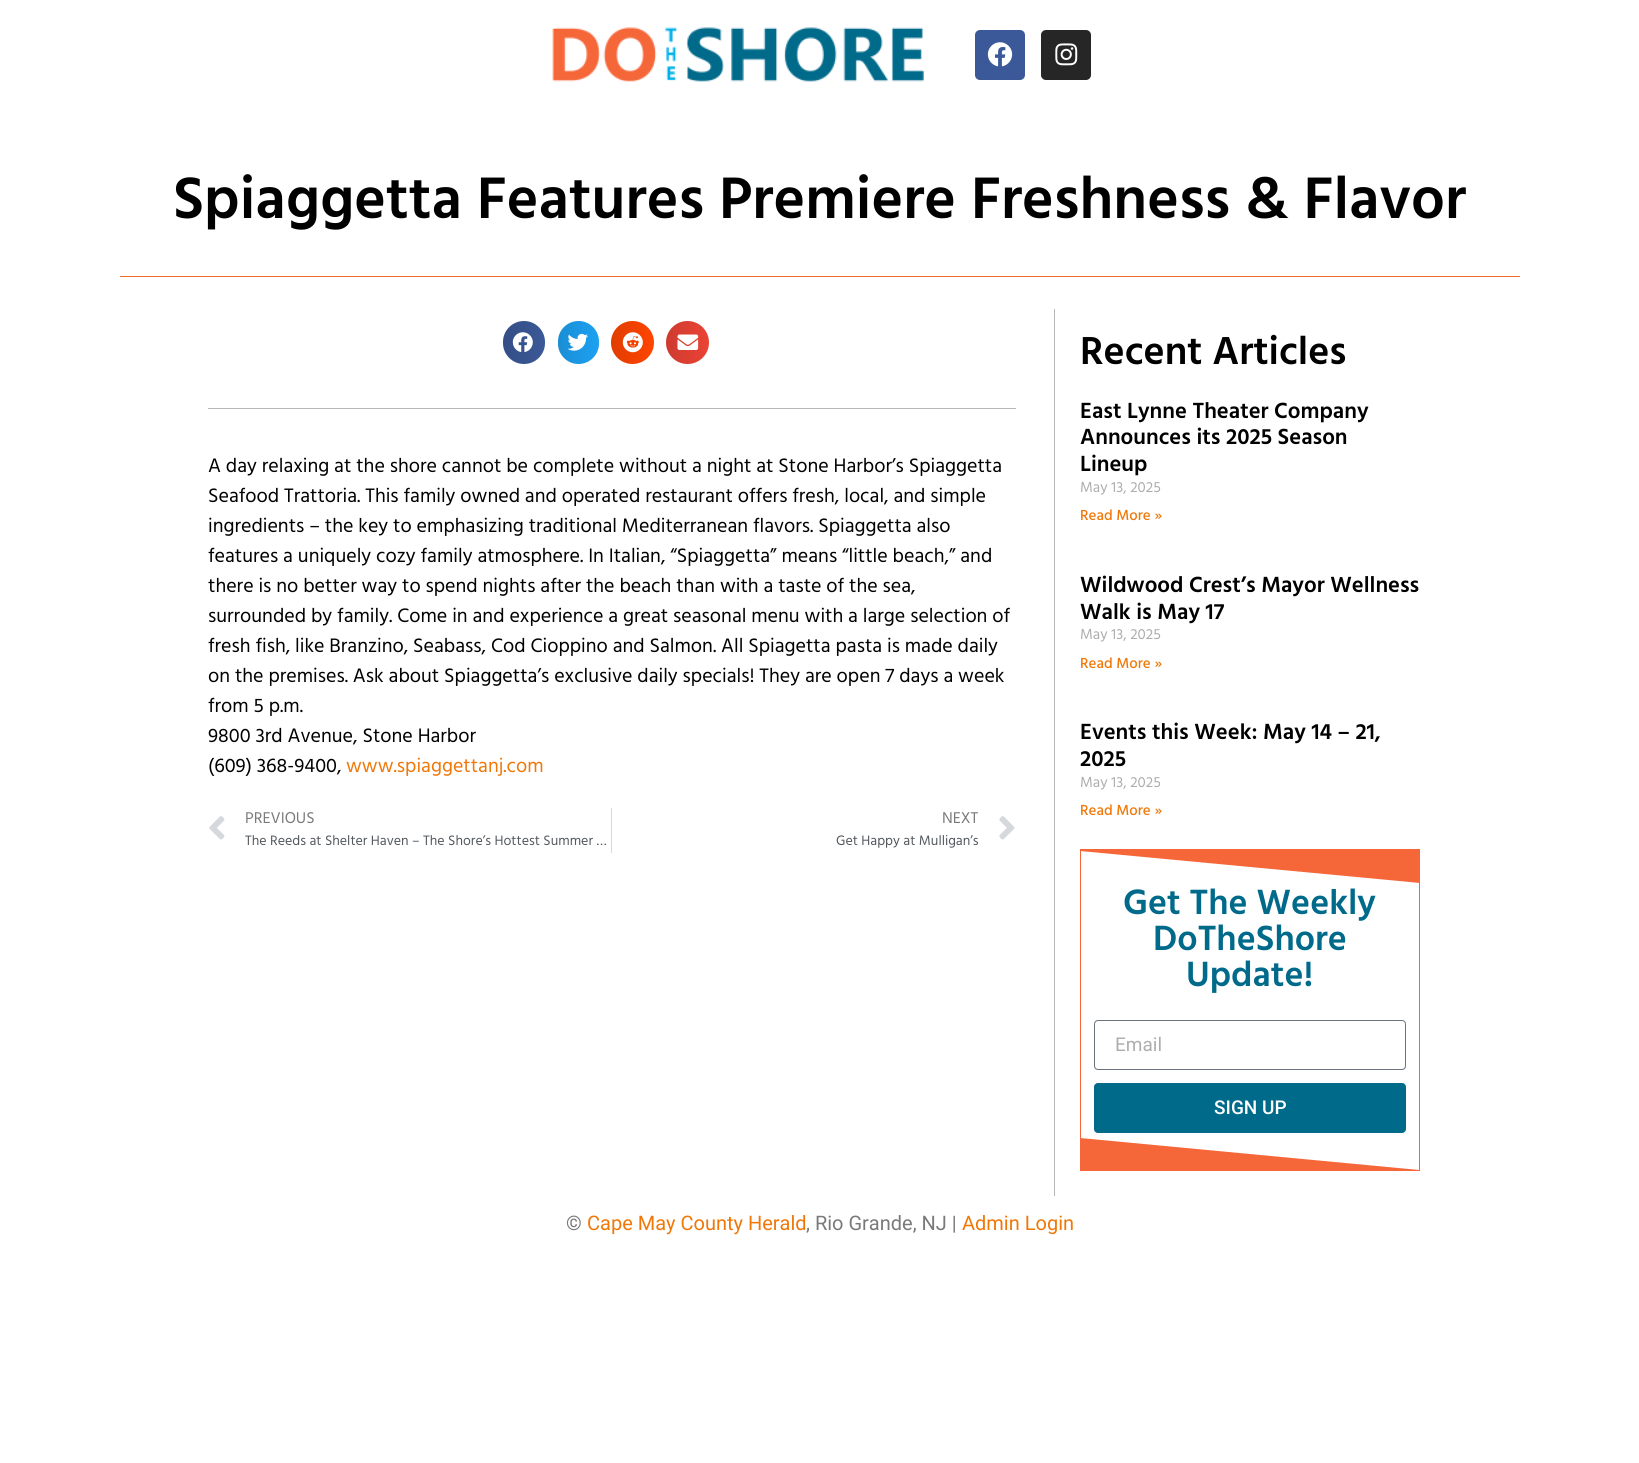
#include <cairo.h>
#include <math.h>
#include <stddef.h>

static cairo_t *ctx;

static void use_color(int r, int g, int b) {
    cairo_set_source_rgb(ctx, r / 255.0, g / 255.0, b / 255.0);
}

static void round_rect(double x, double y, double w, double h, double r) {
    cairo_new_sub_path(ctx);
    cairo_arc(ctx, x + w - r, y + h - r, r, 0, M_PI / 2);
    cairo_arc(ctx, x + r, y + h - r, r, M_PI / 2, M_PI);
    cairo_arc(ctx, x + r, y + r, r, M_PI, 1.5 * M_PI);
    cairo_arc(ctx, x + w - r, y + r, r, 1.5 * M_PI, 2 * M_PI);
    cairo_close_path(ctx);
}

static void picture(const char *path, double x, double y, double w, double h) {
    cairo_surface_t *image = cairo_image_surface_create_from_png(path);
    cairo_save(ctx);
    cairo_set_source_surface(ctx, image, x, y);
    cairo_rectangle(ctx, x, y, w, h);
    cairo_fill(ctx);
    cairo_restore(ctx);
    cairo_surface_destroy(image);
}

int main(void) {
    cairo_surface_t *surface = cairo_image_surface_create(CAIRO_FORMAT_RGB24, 1639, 1463);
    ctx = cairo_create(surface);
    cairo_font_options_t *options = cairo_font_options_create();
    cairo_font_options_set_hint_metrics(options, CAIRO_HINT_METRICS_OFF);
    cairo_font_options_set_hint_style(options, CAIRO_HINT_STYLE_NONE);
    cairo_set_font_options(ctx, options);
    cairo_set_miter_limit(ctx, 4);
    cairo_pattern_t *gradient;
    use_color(255, 255, 255);
    cairo_paint(ctx);
    picture("img1.png", 552, 27, 372, 55);
    use_color(59, 89, 152);
    round_rect(975, 30, 50, 50, 5);
    cairo_fill(ctx);
    picture("img2.png", 987, 42, 26, 25);
    use_color(38, 38, 38);
    round_rect(1041, 30, 50, 50, 5);
    cairo_fill(ctx);
    picture("img3.png", 1055, 43, 23, 23);
    cairo_select_font_face(ctx, "Hind SemiBold", CAIRO_FONT_SLANT_NORMAL, CAIRO_FONT_WEIGHT_NORMAL);
    cairo_set_font_size(ctx, 60);
    use_color(0, 0, 0);
    cairo_move_to(ctx, 173, 218);
    cairo_show_text(ctx, "Spiaggetta Features Premiere Freshness & Flavor");
    use_color(237, 109, 40);
    cairo_rectangle(ctx, 120, 276, 1400, 1);
    cairo_fill(ctx);
    use_color(59, 89, 152);
    round_rect(503, 321, 42, 43, 21);
    cairo_fill(ctx);
    gradient = cairo_pattern_create_linear(503, 343, 545, 343);
    cairo_pattern_add_color_stop_rgba(gradient, 0, 0, 0, 0, 0.12);
    cairo_pattern_add_color_stop_rgba(gradient, 1, 0, 0, 0, 0);
    cairo_set_source(ctx, gradient);
    cairo_pattern_destroy(gradient);
    round_rect(503, 321, 42, 43, 21);
    cairo_fill(ctx);
    picture("img4.png", 512, 332, 21, 21);
    use_color(29, 161, 242);
    round_rect(558, 321, 41, 43, 20.5);
    cairo_fill(ctx);
    gradient = cairo_pattern_create_linear(558, 343, 599, 343);
    cairo_pattern_add_color_stop_rgba(gradient, 0, 0, 0, 0, 0.12);
    cairo_pattern_add_color_stop_rgba(gradient, 1, 0, 0, 0, 0);
    cairo_set_source(ctx, gradient);
    cairo_pattern_destroy(gradient);
    round_rect(558, 321, 41, 43, 20.5);
    cairo_fill(ctx);
    picture("img5.png", 567, 333, 21, 18);
    use_color(255, 69, 0);
    cairo_arc(ctx, 632.5, 342.5, 21.5, 0, 2 * M_PI);
    cairo_fill(ctx);
    gradient = cairo_pattern_create_linear(611, 343, 654, 343);
    cairo_pattern_add_color_stop_rgba(gradient, 0, 0, 0, 0, 0.12);
    cairo_pattern_add_color_stop_rgba(gradient, 1, 0, 0, 0, 0);
    cairo_set_source(ctx, gradient);
    cairo_pattern_destroy(gradient);
    cairo_arc(ctx, 632.5, 342.5, 21.5, 0, 2 * M_PI);
    cairo_fill(ctx);
    picture("img6.png", 622, 332, 21, 21);
    use_color(234, 67, 53);
    cairo_arc(ctx, 687.5, 342.5, 21.5, 0, 2 * M_PI);
    cairo_fill(ctx);
    gradient = cairo_pattern_create_linear(666, 343, 709, 343);
    cairo_pattern_add_color_stop_rgba(gradient, 0, 0, 0, 0, 0.12);
    cairo_pattern_add_color_stop_rgba(gradient, 1, 0, 0, 0, 0);
    cairo_set_source(ctx, gradient);
    cairo_pattern_destroy(gradient);
    cairo_arc(ctx, 687.5, 342.5, 21.5, 0, 2 * M_PI);
    cairo_fill(ctx);
    picture("img7.png", 677, 334, 22, 16);
    use_color(182, 182, 182);
    cairo_rectangle(ctx, 208, 408, 808, 1);
    cairo_fill(ctx);
    cairo_select_font_face(ctx, "Hind", CAIRO_FONT_SLANT_NORMAL, CAIRO_FONT_WEIGHT_NORMAL);
    cairo_set_font_size(ctx, 20);
    use_color(0, 0, 0);
    cairo_move_to(ctx, 208, 472);
    cairo_show_text(ctx, "A day relaxing at the shore cannot be complete without a night at Stone Harbor’s Spiaggetta");
    cairo_move_to(ctx, 208, 502);
    cairo_show_text(ctx, "Seafood Trattoria. This family owned and operated restaurant offers fresh, local, and simple");
    cairo_move_to(ctx, 208, 532);
    cairo_show_text(ctx, "ingredients – the key to emphasizing traditional Mediterranean flavors. Spiaggetta also");
    cairo_move_to(ctx, 208, 562);
    cairo_show_text(ctx, "features a uniquely cozy family atmosphere. In Italian, “Spiaggetta” means “little beach,” and");
    cairo_move_to(ctx, 208, 592);
    cairo_show_text(ctx, "there is no better way to spend nights after the beach than with a taste of the sea,");
    cairo_move_to(ctx, 208, 622);
    cairo_show_text(ctx, "surrounded by family. Come in and experience a great seasonal menu with a large selection of");
    cairo_move_to(ctx, 208, 652);
    cairo_show_text(ctx, "fresh fish, like Branzino, Seabass, Cod Cioppino and Salmon. All Spiagetta pasta is made daily");
    cairo_move_to(ctx, 208, 682);
    cairo_show_text(ctx, "on the premises. Ask about Spiaggetta’s exclusive daily specials! They are open 7 days a week");
    cairo_move_to(ctx, 208, 712);
    cairo_show_text(ctx, "from 5 p.m.");
    cairo_move_to(ctx, 208, 742);
    cairo_show_text(ctx, "9800 3rd Avenue, Stone Harbor");
    cairo_move_to(ctx, 208, 772);
    cairo_show_text(ctx, "(609) 368-9400,");
    use_color(239, 120, 9);
    cairo_move_to(ctx, 346, 772);
    cairo_show_text(ctx, "www.spiaggettanj.com");
    picture("img8.png", 209, 816, 16, 24);
    cairo_set_font_size(ctx, 16);
    use_color(122, 122, 122);
    cairo_move_to(ctx, 245, 823);
    cairo_show_text(ctx, "PREVIOUS");
    cairo_set_font_size(ctx, 14);
    use_color(84, 89, 95);
    cairo_move_to(ctx, 245, 845);
    cairo_show_text(ctx, "The Reeds at Shelter Haven – The Shore’s Hottest Summer …");
    use_color(213, 216, 220);
    cairo_rectangle(ctx, 611, 808, 1, 45);
    cairo_fill(ctx);
    cairo_set_font_size(ctx, 16);
    use_color(122, 122, 122);
    cairo_move_to(ctx, 942, 823);
    cairo_show_text(ctx, "NEXT");
    cairo_set_font_size(ctx, 14);
    use_color(84, 89, 95);
    cairo_move_to(ctx, 836, 845);
    cairo_show_text(ctx, "Get Happy at Mulligan’s");
    picture("img9.png", 999, 816, 16, 24);
    use_color(182, 182, 182);
    cairo_rectangle(ctx, 1054, 309, 1, 887);
    cairo_fill(ctx);
    cairo_select_font_face(ctx, "Hind SemiBold", CAIRO_FONT_SLANT_NORMAL, CAIRO_FONT_WEIGHT_NORMAL);
    cairo_set_font_size(ctx, 40);
    use_color(0, 0, 0);
    cairo_move_to(ctx, 1080, 364);
    cairo_show_text(ctx, "Recent Articles");
    cairo_set_font_size(ctx, 22.5);
    cairo_move_to(ctx, 1080, 418);
    cairo_show_text(ctx, "East Lynne Theater Company");
    cairo_move_to(ctx, 1080, 444);
    cairo_show_text(ctx, "Announces its 2025 Season");
    cairo_move_to(ctx, 1080, 471);
    cairo_show_text(ctx, "Lineup");
    cairo_select_font_face(ctx, "Hind", CAIRO_FONT_SLANT_NORMAL, CAIRO_FONT_WEIGHT_NORMAL);
    cairo_set_font_size(ctx, 15);
    use_color(173, 173, 173);
    cairo_move_to(ctx, 1080, 492);
    cairo_show_text(ctx, "May 13, 2025");
    cairo_select_font_face(ctx, "Hind Medium", CAIRO_FONT_SLANT_NORMAL, CAIRO_FONT_WEIGHT_NORMAL);
    use_color(239, 120, 9);
    cairo_move_to(ctx, 1080, 520);
    cairo_show_text(ctx, "Read More »");
    cairo_select_font_face(ctx, "Hind SemiBold", CAIRO_FONT_SLANT_NORMAL, CAIRO_FONT_WEIGHT_NORMAL);
    cairo_set_font_size(ctx, 22.5);
    use_color(0, 0, 0);
    cairo_move_to(ctx, 1080, 592);
    cairo_show_text(ctx, "Wildwood Crest’s Mayor Wellness");
    cairo_move_to(ctx, 1080, 619);
    cairo_show_text(ctx, "Walk is May 17");
    cairo_select_font_face(ctx, "Hind", CAIRO_FONT_SLANT_NORMAL, CAIRO_FONT_WEIGHT_NORMAL);
    cairo_set_font_size(ctx, 15);
    use_color(173, 173, 173);
    cairo_move_to(ctx, 1080, 639);
    cairo_show_text(ctx, "May 13, 2025");
    cairo_select_font_face(ctx, "Hind Medium", CAIRO_FONT_SLANT_NORMAL, CAIRO_FONT_WEIGHT_NORMAL);
    use_color(239, 120, 9);
    cairo_move_to(ctx, 1080, 668);
    cairo_show_text(ctx, "Read More »");
    cairo_select_font_face(ctx, "Hind SemiBold", CAIRO_FONT_SLANT_NORMAL, CAIRO_FONT_WEIGHT_NORMAL);
    cairo_set_font_size(ctx, 22.5);
    use_color(0, 0, 0);
    cairo_move_to(ctx, 1080, 739);
    cairo_show_text(ctx, "Events this Week: May 14 – 21,");
    cairo_move_to(ctx, 1080, 766);
    cairo_show_text(ctx, "2025");
    cairo_select_font_face(ctx, "Hind", CAIRO_FONT_SLANT_NORMAL, CAIRO_FONT_WEIGHT_NORMAL);
    cairo_set_font_size(ctx, 15);
    use_color(173, 173, 173);
    cairo_move_to(ctx, 1080, 787);
    cairo_show_text(ctx, "May 13, 2025");
    cairo_select_font_face(ctx, "Hind Medium", CAIRO_FONT_SLANT_NORMAL, CAIRO_FONT_WEIGHT_NORMAL);
    use_color(239, 120, 9);
    cairo_move_to(ctx, 1080, 815);
    cairo_show_text(ctx, "Read More »");
    cairo_rectangle(ctx, 1080.5, 849.5, 339, 321);
    use_color(245, 102, 57);
    cairo_set_line_width(ctx, 1);
    cairo_stroke(ctx);
    cairo_save(ctx);
    cairo_rectangle(ctx, 1081, 849, 338, 34);
    cairo_clip(ctx);
    cairo_new_path(ctx);
    cairo_move_to(ctx, 1080, 851);
    cairo_line_to(ctx, 1080, 849);
    cairo_line_to(ctx, 1420, 849);
    cairo_line_to(ctx, 1420, 883);
    cairo_close_path(ctx);
    cairo_fill(ctx);
    cairo_restore(ctx);
    cairo_select_font_face(ctx, "Hind SemiBold", CAIRO_FONT_SLANT_NORMAL, CAIRO_FONT_WEIGHT_NORMAL);
    cairo_set_font_size(ctx, 36);
    use_color(0, 106, 139);
    cairo_move_to(ctx, 1123, 914);
    cairo_show_text(ctx, "Get The Weekly");
    cairo_move_to(ctx, 1153, 950);
    cairo_show_text(ctx, "DoTheShore");
    cairo_move_to(ctx, 1186, 986);
    cairo_show_text(ctx, "Update!");
    round_rect(1094.5, 1020.5, 311, 49, 3.5);
    use_color(105, 114, 125);
    cairo_stroke(ctx);
    cairo_select_font_face(ctx, "Roboto", CAIRO_FONT_SLANT_NORMAL, CAIRO_FONT_WEIGHT_NORMAL);
    cairo_set_font_size(ctx, 19);
    use_color(173, 173, 173);
    cairo_move_to(ctx, 1115, 1051);
    cairo_show_text(ctx, "Email");
    use_color(0, 106, 139);
    round_rect(1094, 1083, 312, 50, 4);
    cairo_fill(ctx);
    cairo_select_font_face(ctx, "Roboto Medium", CAIRO_FONT_SLANT_NORMAL, CAIRO_FONT_WEIGHT_NORMAL);
    use_color(255, 255, 255);
    cairo_move_to(ctx, 1214, 1114);
    cairo_show_text(ctx, "SIGN UP");
    cairo_save(ctx);
    cairo_rectangle(ctx, 1081, 1138, 338, 33);
    cairo_clip(ctx);
    use_color(245, 102, 57);
    cairo_new_path(ctx);
    cairo_move_to(ctx, 1419, 1170);
    cairo_line_to(ctx, 1419, 1172);
    cairo_line_to(ctx, 1080, 1172);
    cairo_line_to(ctx, 1080, 1138);
    cairo_close_path(ctx);
    cairo_fill(ctx);
    cairo_restore(ctx);
    cairo_select_font_face(ctx, "Roboto", CAIRO_FONT_SLANT_NORMAL, CAIRO_FONT_WEIGHT_NORMAL);
    cairo_set_font_size(ctx, 20);
    use_color(122, 122, 122);
    cairo_move_to(ctx, 566, 1230);
    cairo_show_text(ctx, "©");
    use_color(239, 120, 9);
    cairo_move_to(ctx, 587, 1230);
    cairo_show_text(ctx, "Cape May County Herald");
    use_color(122, 122, 122);
    cairo_move_to(ctx, 806, 1230);
    cairo_show_text(ctx, ", Rio Grande, NJ |");
    use_color(239, 120, 9);
    cairo_move_to(ctx, 962, 1230);
    cairo_show_text(ctx, "Admin Login");
    cairo_surface_write_to_png(surface, "result.png");
    cairo_font_options_destroy(options);
    cairo_destroy(ctx);
    cairo_surface_destroy(surface);
    return 0;
}
